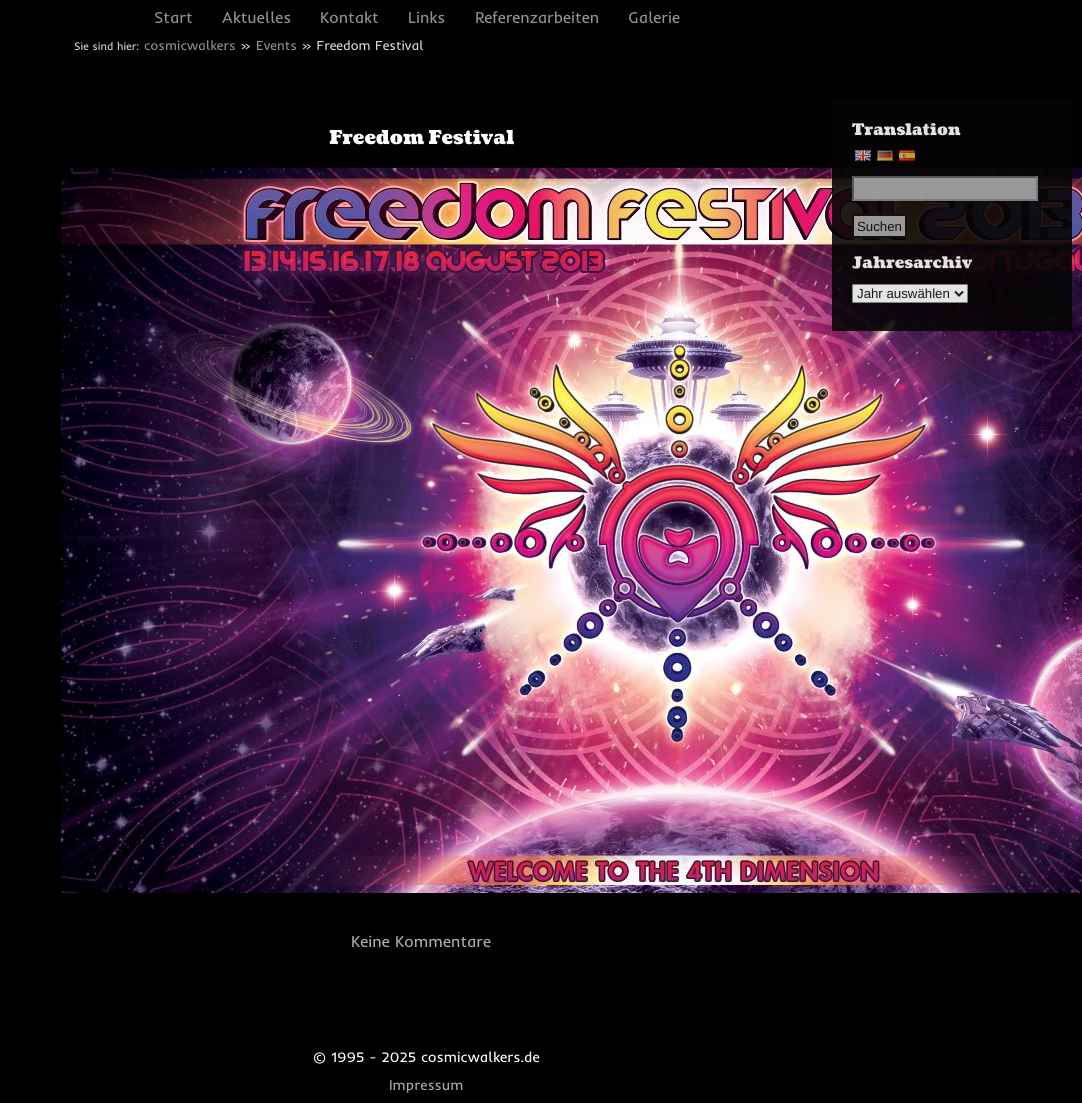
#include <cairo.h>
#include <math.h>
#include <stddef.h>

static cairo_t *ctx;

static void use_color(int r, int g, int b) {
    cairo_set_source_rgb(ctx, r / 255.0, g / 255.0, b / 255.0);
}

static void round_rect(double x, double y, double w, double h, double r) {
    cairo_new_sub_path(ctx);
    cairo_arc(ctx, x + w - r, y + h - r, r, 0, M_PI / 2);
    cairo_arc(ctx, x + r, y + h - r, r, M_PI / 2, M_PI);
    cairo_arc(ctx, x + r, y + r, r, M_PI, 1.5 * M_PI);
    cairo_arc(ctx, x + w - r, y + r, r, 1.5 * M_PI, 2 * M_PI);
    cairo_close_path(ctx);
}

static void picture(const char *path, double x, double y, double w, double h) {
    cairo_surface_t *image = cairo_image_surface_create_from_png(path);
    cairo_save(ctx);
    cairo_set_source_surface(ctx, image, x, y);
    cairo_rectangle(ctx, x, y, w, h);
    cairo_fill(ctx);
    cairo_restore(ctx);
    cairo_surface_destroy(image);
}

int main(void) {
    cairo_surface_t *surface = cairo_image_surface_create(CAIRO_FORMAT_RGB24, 1082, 1103);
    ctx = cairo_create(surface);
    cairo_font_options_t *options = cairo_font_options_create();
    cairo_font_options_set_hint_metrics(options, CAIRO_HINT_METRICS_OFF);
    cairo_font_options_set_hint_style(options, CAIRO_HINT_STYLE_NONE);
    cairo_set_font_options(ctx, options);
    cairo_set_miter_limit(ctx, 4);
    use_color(0, 0, 0);
    cairo_paint(ctx);
    cairo_select_font_face(ctx, "Inder", CAIRO_FONT_SLANT_NORMAL, CAIRO_FONT_WEIGHT_NORMAL);
    cairo_set_font_size(ctx, 16);
    use_color(145, 145, 145);
    cairo_move_to(ctx, 154, 23);
    cairo_show_text(ctx, "Start");
    cairo_move_to(ctx, 222, 23);
    cairo_show_text(ctx, "Aktuelles");
    cairo_move_to(ctx, 320, 23);
    cairo_show_text(ctx, "Kontakt");
    cairo_move_to(ctx, 408, 23);
    cairo_show_text(ctx, "Links");
    cairo_move_to(ctx, 475, 23);
    cairo_show_text(ctx, "Referenzarbeiten");
    cairo_move_to(ctx, 628, 23);
    cairo_show_text(ctx, "Galerie");
    cairo_set_font_size(ctx, 11);
    use_color(217, 217, 217);
    cairo_move_to(ctx, 74, 50);
    cairo_show_text(ctx, "Sie sind hier:");
    cairo_set_font_size(ctx, 13.25);
    use_color(145, 145, 145);
    cairo_move_to(ctx, 144, 50);
    cairo_show_text(ctx, "cosmicwalkers");
    use_color(217, 217, 217);
    cairo_move_to(ctx, 240, 50);
    cairo_show_text(ctx, "»");
    use_color(145, 145, 145);
    cairo_move_to(ctx, 256, 50);
    cairo_show_text(ctx, "Events");
    use_color(217, 217, 217);
    cairo_move_to(ctx, 301, 50);
    cairo_show_text(ctx, "» Freedom Festival");
    cairo_select_font_face(ctx, "Coustard Black", CAIRO_FONT_SLANT_NORMAL, CAIRO_FONT_WEIGHT_NORMAL);
    cairo_set_font_size(ctx, 19.25);
    use_color(255, 255, 255);
    cairo_move_to(ctx, 329, 144);
    cairo_show_text(ctx, "Freedom Festival");
    picture("img1.png", 61, 168, 1021, 725);
    cairo_select_font_face(ctx, "Inder", CAIRO_FONT_SLANT_NORMAL, CAIRO_FONT_WEIGHT_NORMAL);
    cairo_set_font_size(ctx, 16);
    use_color(170, 170, 170);
    cairo_move_to(ctx, 351, 947);
    cairo_show_text(ctx, "Keine Kommentare");
    cairo_set_source_rgba(ctx, 0.02, 0.02, 0.02, 0.89);
    cairo_rectangle(ctx, 832, 100, 240, 231);
    cairo_fill(ctx);
    cairo_select_font_face(ctx, "Coustard Black", CAIRO_FONT_SLANT_NORMAL, CAIRO_FONT_WEIGHT_NORMAL);
    use_color(227, 227, 227);
    cairo_move_to(ctx, 852, 135);
    cairo_show_text(ctx, "Translation");
    picture("img2.png", 855, 150, 16, 11);
    picture("img3.png", 877, 150, 16, 11);
    picture("img4.png", 899, 150, 16, 11);
    cairo_set_source_rgba(ctx, 0.667, 0.667, 0.667, 0.89);
    cairo_rectangle(ctx, 852, 176, 186, 25);
    cairo_fill(ctx);
    use_color(87, 87, 87);
    cairo_new_path(ctx);
    cairo_move_to(ctx, 852, 176);
    cairo_line_to(ctx, 1038, 176);
    cairo_line_to(ctx, 1036, 178);
    cairo_line_to(ctx, 854, 178);
    cairo_close_path(ctx);
    cairo_fill(ctx);
    cairo_set_source_rgba(ctx, 0.463, 0.463, 0.463, 0.89);
    cairo_new_path(ctx);
    cairo_move_to(ctx, 1038, 176);
    cairo_line_to(ctx, 1038, 201);
    cairo_line_to(ctx, 1036, 199);
    cairo_line_to(ctx, 1036, 178);
    cairo_close_path(ctx);
    cairo_fill(ctx);
    cairo_new_path(ctx);
    cairo_move_to(ctx, 1038, 201);
    cairo_line_to(ctx, 852, 201);
    cairo_line_to(ctx, 854, 199);
    cairo_line_to(ctx, 1036, 199);
    cairo_close_path(ctx);
    cairo_fill(ctx);
    cairo_set_source_rgba(ctx, 0.31, 0.31, 0.31, 0.89);
    cairo_new_path(ctx);
    cairo_move_to(ctx, 852, 201);
    cairo_line_to(ctx, 852, 176);
    cairo_line_to(ctx, 854, 178);
    cairo_line_to(ctx, 854, 199);
    cairo_close_path(ctx);
    cairo_fill(ctx);
    cairo_set_source_rgba(ctx, 0.667, 0.667, 0.667, 0.89);
    cairo_rectangle(ctx, 852, 214, 55, 24);
    cairo_fill(ctx);
    cairo_rectangle(ctx, 853, 215, 53, 22);
    cairo_set_source_rgba(ctx, 0, 0, 0, 0.89);
    cairo_stroke(ctx);
    cairo_select_font_face(ctx, "Liberation Sans", CAIRO_FONT_SLANT_NORMAL, CAIRO_FONT_WEIGHT_NORMAL);
    cairo_set_font_size(ctx, 13.25);
    use_color(17, 17, 17);
    cairo_move_to(ctx, 857, 231);
    cairo_show_text(ctx, "Suchen");
    cairo_select_font_face(ctx, "Coustard Black", CAIRO_FONT_SLANT_NORMAL, CAIRO_FONT_WEIGHT_NORMAL);
    cairo_set_font_size(ctx, 16);
    use_color(227, 227, 227);
    cairo_move_to(ctx, 852, 268);
    cairo_show_text(ctx, "Jahresarchiv");
    cairo_set_source_rgba(ctx, 1, 1, 1, 0.89);
    round_rect(852, 284, 116, 19, 2);
    cairo_fill(ctx);
    round_rect(852.5, 284.5, 115, 18, 1.5);
    cairo_set_source_rgba(ctx, 0.463, 0.463, 0.463, 0.89);
    cairo_set_line_width(ctx, 1);
    cairo_stroke(ctx);
    cairo_new_path(ctx);
    cairo_move_to(ctx, 955, 291.5);
    cairo_line_to(ctx, 959, 295.5);
    cairo_line_to(ctx, 963, 291.5);
    use_color(25, 25, 25);
    cairo_set_line_width(ctx, 2);
    cairo_stroke(ctx);
    cairo_select_font_face(ctx, "Liberation Sans", CAIRO_FONT_SLANT_NORMAL, CAIRO_FONT_WEIGHT_NORMAL);
    cairo_set_font_size(ctx, 13.25);
    cairo_move_to(ctx, 857, 298);
    cairo_show_text(ctx, "Jahr auswählen");
    cairo_select_font_face(ctx, "Inder", CAIRO_FONT_SLANT_NORMAL, CAIRO_FONT_WEIGHT_NORMAL);
    cairo_set_font_size(ctx, 14.4);
    use_color(255, 255, 255);
    cairo_move_to(ctx, 313, 1062);
    cairo_show_text(ctx, "© 1995 - 2025 cosmicwalkers.de");
    use_color(170, 170, 170);
    cairo_move_to(ctx, 389, 1090);
    cairo_show_text(ctx, "Impressum");
    cairo_surface_write_to_png(surface, "result.png");
    cairo_font_options_destroy(options);
    cairo_destroy(ctx);
    cairo_surface_destroy(surface);
    return 0;
}
